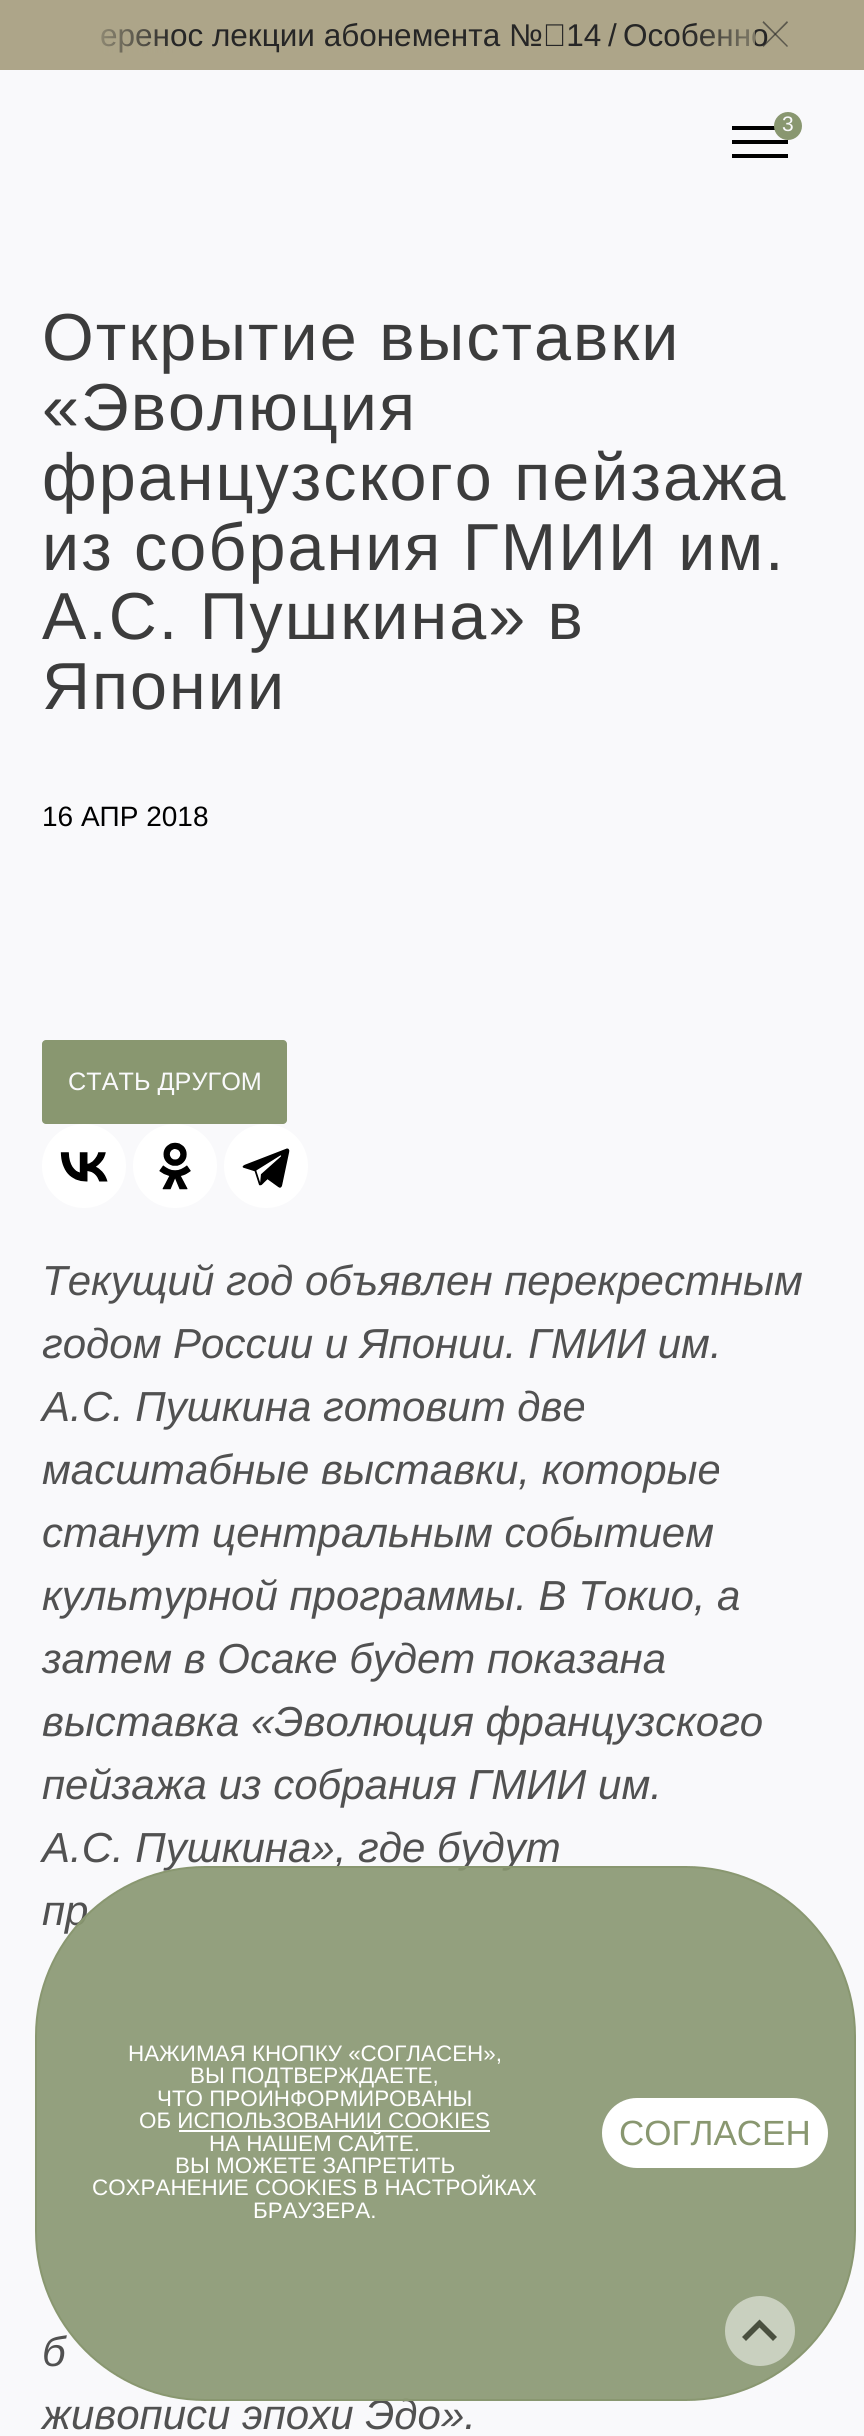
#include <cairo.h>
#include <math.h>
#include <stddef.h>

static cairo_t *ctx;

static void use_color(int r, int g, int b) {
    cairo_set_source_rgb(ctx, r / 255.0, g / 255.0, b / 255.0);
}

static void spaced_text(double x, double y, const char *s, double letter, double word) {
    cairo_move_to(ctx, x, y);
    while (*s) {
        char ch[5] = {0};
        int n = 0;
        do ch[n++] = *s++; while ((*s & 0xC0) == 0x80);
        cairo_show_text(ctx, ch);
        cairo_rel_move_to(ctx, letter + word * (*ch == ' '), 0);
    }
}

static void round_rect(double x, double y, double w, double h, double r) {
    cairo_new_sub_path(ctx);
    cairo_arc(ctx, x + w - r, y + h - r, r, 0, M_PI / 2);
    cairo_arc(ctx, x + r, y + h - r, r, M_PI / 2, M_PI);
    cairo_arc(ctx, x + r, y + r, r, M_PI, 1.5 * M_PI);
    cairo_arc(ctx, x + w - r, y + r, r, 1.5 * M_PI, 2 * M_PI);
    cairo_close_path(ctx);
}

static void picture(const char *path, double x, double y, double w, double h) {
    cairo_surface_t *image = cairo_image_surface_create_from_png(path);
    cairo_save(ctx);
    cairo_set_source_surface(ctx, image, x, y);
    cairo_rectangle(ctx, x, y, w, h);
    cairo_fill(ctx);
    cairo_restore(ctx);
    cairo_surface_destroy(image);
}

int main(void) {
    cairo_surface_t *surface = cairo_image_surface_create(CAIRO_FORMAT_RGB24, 864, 2436);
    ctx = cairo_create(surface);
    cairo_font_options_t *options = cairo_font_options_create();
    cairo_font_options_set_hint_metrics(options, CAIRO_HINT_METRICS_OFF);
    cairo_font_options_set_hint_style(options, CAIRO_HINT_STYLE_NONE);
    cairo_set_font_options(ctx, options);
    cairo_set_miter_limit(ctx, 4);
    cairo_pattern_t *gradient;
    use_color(249, 249, 251);
    cairo_paint(ctx);
    use_color(173, 165, 137);
    cairo_rectangle(ctx, 0, 0, 864, 70);
    cairo_fill(ctx);
    cairo_select_font_face(ctx, "Liberation Sans", CAIRO_FONT_SLANT_NORMAL, CAIRO_FONT_WEIGHT_NORMAL);
    cairo_set_font_size(ctx, 31.5);
    use_color(38, 38, 38);
    cairo_move_to(ctx, 100, 46);
    cairo_show_text(ctx, "еренос лекции абонемента № 14");
    cairo_move_to(ctx, 608, 46);
    cairo_show_text(ctx, "/");
    cairo_move_to(ctx, 623, 46);
    cairo_show_text(ctx, "Особенно");
    gradient = cairo_pattern_create_linear(690, 35, 788, 35);
    cairo_pattern_add_color_stop_rgba(gradient, 0, 0.678, 0.647, 0.537, 0);
    cairo_pattern_add_color_stop_rgba(gradient, 1, 0.678, 0.647, 0.537, 1);
    cairo_set_source(ctx, gradient);
    cairo_pattern_destroy(gradient);
    cairo_rectangle(ctx, 692, 29, 63, 18);
    cairo_fill(ctx);
    cairo_set_source_rgba(ctx, 0.149, 0.149, 0.149, 0.6);
    cairo_new_path(ctx);
    cairo_move_to(ctx, 763.5, 21);
    cairo_line_to(ctx, 788, 46);
    cairo_line_to(ctx, 787, 47);
    cairo_line_to(ctx, 762.5, 22.5);
    cairo_close_path(ctx);
    cairo_fill(ctx);
    cairo_new_path(ctx);
    cairo_move_to(ctx, 762.5, 46);
    cairo_line_to(ctx, 787, 21);
    cairo_line_to(ctx, 788, 22.5);
    cairo_line_to(ctx, 763.5, 47);
    cairo_close_path(ctx);
    cairo_fill(ctx);
    gradient = cairo_pattern_create_linear(175, 28, 77, 28);
    cairo_pattern_add_color_stop_rgba(gradient, 0, 0.678, 0.647, 0.537, 0);
    cairo_pattern_add_color_stop_rgba(gradient, 1, 0.678, 0.647, 0.537, 1);
    cairo_set_source(ctx, gradient);
    cairo_pattern_destroy(gradient);
    cairo_rectangle(ctx, 101, 29, 72, 24);
    cairo_fill(ctx);
    use_color(0, 0, 0);
    cairo_rectangle(ctx, 732, 126, 43, 4);
    cairo_fill(ctx);
    use_color(137, 151, 112);
    cairo_arc(ctx, 788, 126, 14, 0, 2 * M_PI);
    cairo_fill(ctx);
    cairo_set_font_size(ctx, 21);
    use_color(249, 249, 251);
    cairo_move_to(ctx, 782, 131);
    cairo_show_text(ctx, "3");
    use_color(0, 0, 0);
    cairo_rectangle(ctx, 732, 140, 56, 4);
    cairo_fill(ctx);
    cairo_rectangle(ctx, 732, 154, 56, 4);
    cairo_fill(ctx);
    cairo_select_font_face(ctx, "Liberation Sans", CAIRO_FONT_SLANT_ITALIC, CAIRO_FONT_WEIGHT_NORMAL);
    cairo_set_font_size(ctx, 42);
    use_color(81, 81, 81);
    cairo_move_to(ctx, 42, 1862);
    cairo_show_text(ctx, "А.С. Пушкина», где будут");
    cairo_move_to(ctx, 42, 1925);
    cairo_show_text(ctx, "пр");
    cairo_move_to(ctx, 42, 2366);
    cairo_show_text(ctx, "б");
    cairo_move_to(ctx, 42, 2429);
    cairo_show_text(ctx, "живописи эпохи Эдо».");
    cairo_set_source_rgba(ctx, 0.537, 0.592, 0.439, 0.9);
    round_rect(36, 1867, 819, 533, 169);
    cairo_fill_preserve(ctx);
    use_color(137, 151, 112);
    cairo_stroke(ctx);
    cairo_set_source_rgba(ctx, 1, 1, 1, 0.5);
    cairo_arc(ctx, 760, 2331, 35, 0, 2 * M_PI);
    cairo_fill(ctx);
    use_color(74, 80, 63);
    cairo_new_path(ctx);
    cairo_move_to(ctx, 746, 2341);
    cairo_line_to(ctx, 759.5, 2327.5);
    cairo_line_to(ctx, 773, 2341);
    cairo_line_to(ctx, 777, 2337);
    cairo_line_to(ctx, 759.5, 2319.5);
    cairo_line_to(ctx, 742, 2337);
    cairo_close_path(ctx);
    cairo_fill(ctx);
    cairo_select_font_face(ctx, "Liberation Sans", CAIRO_FONT_SLANT_NORMAL, CAIRO_FONT_WEIGHT_NORMAL);
    cairo_set_font_size(ctx, 66.5);
    use_color(60, 60, 60);
    spaced_text(42, 360, "Открытие выставки", 2, 0);
    spaced_text(42, 430, "«Эволюция", 2, 0);
    spaced_text(42, 500, "французского пейзажа", 2, 0);
    spaced_text(42, 570, "из собрания ГМИИ им.", 2, 0);
    spaced_text(42, 639, "А.С. Пушкина» в", 2, 0);
    spaced_text(42, 709, "Японии", 2, 0);
    cairo_set_font_size(ctx, 28);
    use_color(0, 0, 0);
    cairo_move_to(ctx, 42, 826);
    cairo_show_text(ctx, "16 АПР 2018");
    use_color(137, 151, 112);
    round_rect(42, 1040, 245, 84, 4);
    cairo_fill(ctx);
    cairo_set_font_size(ctx, 25.25);
    use_color(249, 249, 251);
    cairo_move_to(ctx, 68, 1090);
    cairo_show_text(ctx, "СТАТЬ ДРУГОМ");
    use_color(255, 255, 255);
    cairo_new_path(ctx);
    cairo_arc(ctx, 84, 1166, 42, 0, 2 * M_PI);
    cairo_fill(ctx);
    picture("img1.png", 60, 1152, 48, 30);
    cairo_arc(ctx, 175, 1166, 42, 0, 2 * M_PI);
    cairo_fill(ctx);
    picture("img2.png", 159, 1142, 32, 48);
    cairo_arc(ctx, 266, 1166, 42, 0, 2 * M_PI);
    cairo_fill(ctx);
    picture("img3.png", 242, 1148, 48, 40);
    cairo_select_font_face(ctx, "Liberation Sans", CAIRO_FONT_SLANT_ITALIC, CAIRO_FONT_WEIGHT_NORMAL);
    cairo_set_font_size(ctx, 42);
    use_color(81, 81, 81);
    cairo_move_to(ctx, 42, 1295);
    cairo_show_text(ctx, "Текущий год объявлен перекрестным");
    cairo_move_to(ctx, 42, 1358);
    cairo_show_text(ctx, "годом России и Японии. ГМИИ им.");
    cairo_move_to(ctx, 42, 1421);
    cairo_show_text(ctx, "А.С. Пушкина готовит две");
    cairo_move_to(ctx, 42, 1484);
    cairo_show_text(ctx, "масштабные выставки, которые");
    cairo_move_to(ctx, 42, 1547);
    cairo_show_text(ctx, "станут центральным событием");
    cairo_move_to(ctx, 42, 1610);
    cairo_show_text(ctx, "культурной программы. В Токио, а");
    cairo_move_to(ctx, 42, 1673);
    cairo_show_text(ctx, "затем в Осаке будет показана");
    cairo_move_to(ctx, 42, 1736);
    cairo_show_text(ctx, "выставка «Эволюция французского");
    cairo_move_to(ctx, 42, 1799);
    cairo_show_text(ctx, "пейзажа из собрания ГМИИ им.");
    cairo_select_font_face(ctx, "Liberation Sans", CAIRO_FONT_SLANT_NORMAL, CAIRO_FONT_WEIGHT_NORMAL);
    cairo_set_font_size(ctx, 22.4);
    use_color(255, 255, 255);
    cairo_move_to(ctx, 128, 2061);
    cairo_show_text(ctx, "НАЖИМАЯ КНОПКУ «СОГЛАСЕН»,");
    cairo_move_to(ctx, 190, 2083);
    cairo_show_text(ctx, "ВЫ ПОДТВЕРЖДАЕТЕ,");
    cairo_move_to(ctx, 157, 2106);
    cairo_show_text(ctx, "ЧТО ПРОИНФОРМИРОВАНЫ");
    cairo_move_to(ctx, 139, 2128);
    cairo_show_text(ctx, "ОБ ИСПОЛЬЗОВАНИИ COOKIES");
    cairo_rectangle(ctx, 179, 2130, 311, 2);
    cairo_fill(ctx);
    cairo_move_to(ctx, 209, 2151);
    cairo_show_text(ctx, "НА НАШЕМ САЙТЕ.");
    cairo_move_to(ctx, 175, 2173);
    cairo_show_text(ctx, "ВЫ МОЖЕТЕ ЗАПРЕТИТЬ");
    cairo_move_to(ctx, 92, 2195);
    cairo_show_text(ctx, "СОХРАНЕНИЕ COOKIES В НАСТРОЙКАХ");
    cairo_move_to(ctx, 253, 2218);
    cairo_show_text(ctx, "БРАУЗЕРА.");
    round_rect(602, 2098, 226, 70, 35);
    cairo_fill(ctx);
    cairo_set_font_size(ctx, 35);
    use_color(137, 151, 112);
    cairo_move_to(ctx, 619, 2145);
    cairo_show_text(ctx, "СОГЛАСЕН");
    cairo_surface_write_to_png(surface, "result.png");
    cairo_font_options_destroy(options);
    cairo_destroy(ctx);
    cairo_surface_destroy(surface);
    return 0;
}
